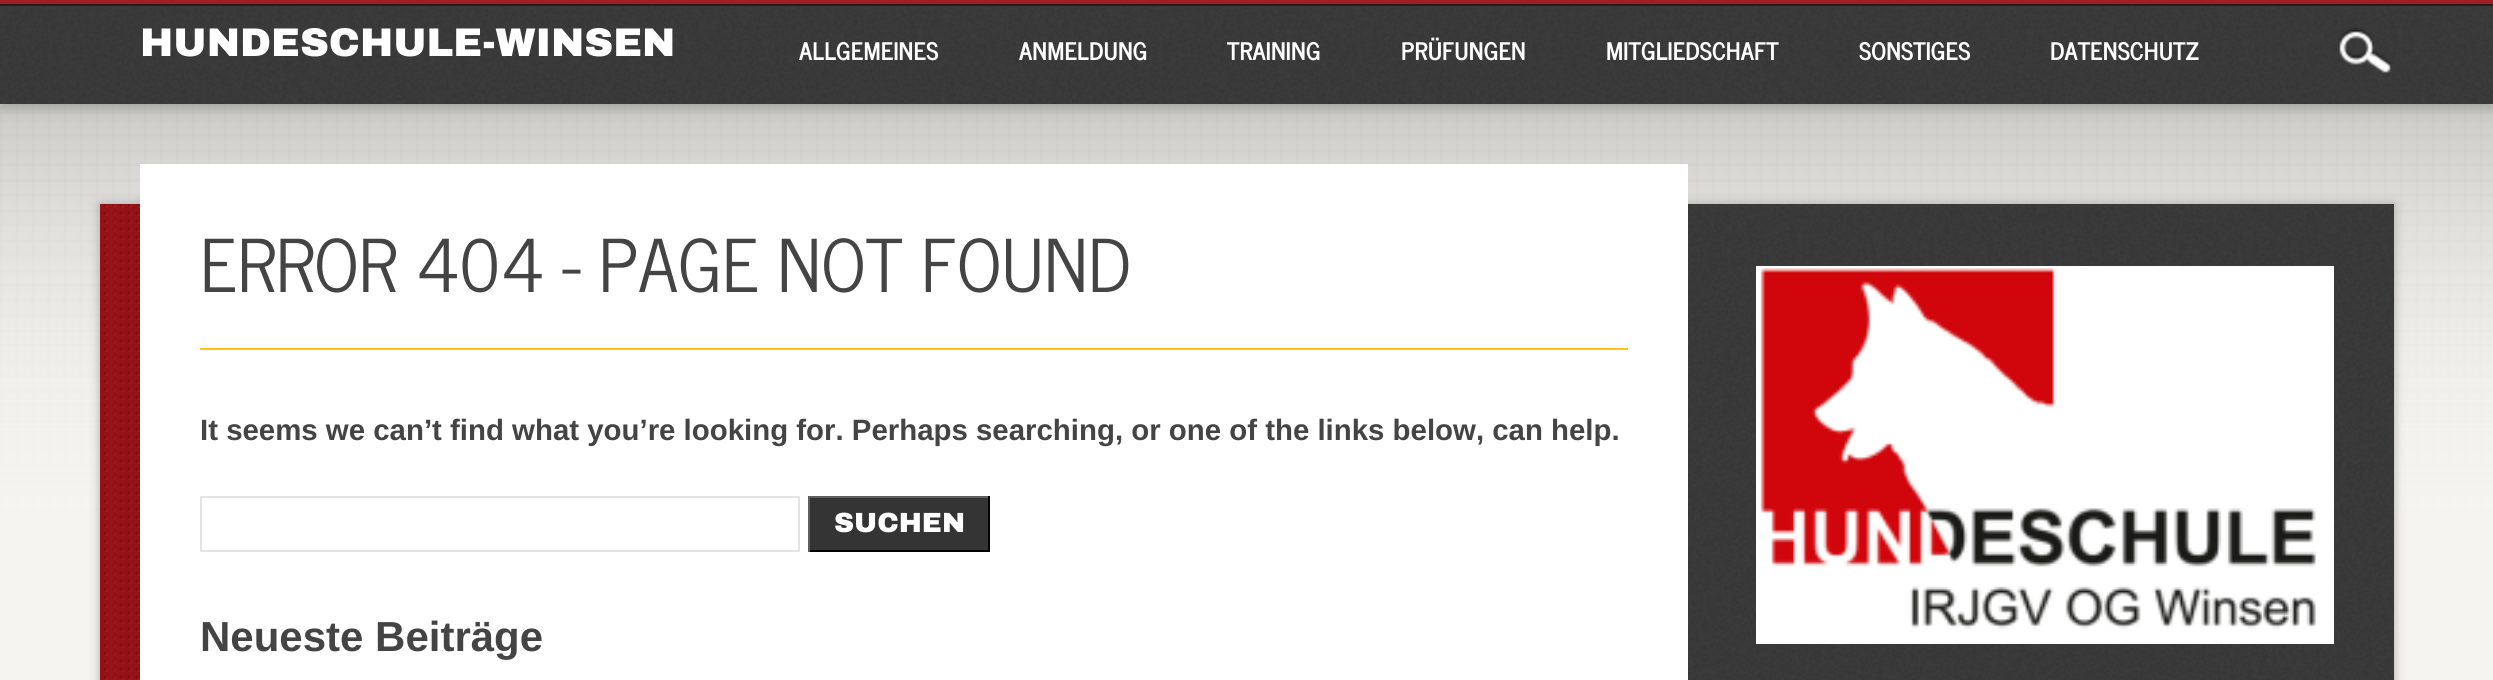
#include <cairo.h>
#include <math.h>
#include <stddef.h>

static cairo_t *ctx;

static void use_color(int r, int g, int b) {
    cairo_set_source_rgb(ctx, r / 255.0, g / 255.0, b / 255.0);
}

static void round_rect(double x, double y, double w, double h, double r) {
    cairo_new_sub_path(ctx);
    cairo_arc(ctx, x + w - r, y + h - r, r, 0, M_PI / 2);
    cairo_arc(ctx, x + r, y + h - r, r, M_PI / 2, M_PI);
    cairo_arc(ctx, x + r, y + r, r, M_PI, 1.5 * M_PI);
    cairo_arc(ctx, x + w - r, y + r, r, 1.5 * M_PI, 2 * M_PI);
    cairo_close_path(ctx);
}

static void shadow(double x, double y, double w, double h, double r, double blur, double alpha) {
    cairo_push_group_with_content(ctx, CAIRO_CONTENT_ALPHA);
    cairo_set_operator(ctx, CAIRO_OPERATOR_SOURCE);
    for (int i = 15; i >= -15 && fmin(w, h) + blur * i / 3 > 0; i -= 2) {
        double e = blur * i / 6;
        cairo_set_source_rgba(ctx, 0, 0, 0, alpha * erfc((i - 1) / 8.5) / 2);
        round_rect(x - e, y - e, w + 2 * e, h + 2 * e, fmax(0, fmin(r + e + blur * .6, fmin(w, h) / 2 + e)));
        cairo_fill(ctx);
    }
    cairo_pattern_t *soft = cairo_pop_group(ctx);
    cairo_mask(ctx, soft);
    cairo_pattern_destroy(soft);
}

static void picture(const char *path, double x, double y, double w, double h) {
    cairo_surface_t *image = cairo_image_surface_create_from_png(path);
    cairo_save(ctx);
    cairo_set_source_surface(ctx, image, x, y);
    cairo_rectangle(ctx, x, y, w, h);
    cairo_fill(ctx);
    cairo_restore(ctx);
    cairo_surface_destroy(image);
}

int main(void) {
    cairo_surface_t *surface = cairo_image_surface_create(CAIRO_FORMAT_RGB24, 2493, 680);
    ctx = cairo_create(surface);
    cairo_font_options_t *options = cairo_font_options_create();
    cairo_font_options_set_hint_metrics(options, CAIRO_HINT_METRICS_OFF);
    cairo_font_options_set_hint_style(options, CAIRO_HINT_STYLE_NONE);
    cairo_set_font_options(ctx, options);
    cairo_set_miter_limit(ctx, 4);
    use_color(255, 255, 255);
    cairo_paint(ctx);
    picture("img1.png", 0, 104, 2493, 576);
    use_color(169, 169, 169);
    shadow(0, 6, 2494, 104, 0, 5, 1);
    picture("img2.png", 0, 6, 2493, 98);
    use_color(160, 29, 35);
    cairo_rectangle(ctx, 0, 0, 2493, 4);
    cairo_fill(ctx);
    use_color(32, 32, 32);
    cairo_rectangle(ctx, 0, 4, 2493, 2);
    cairo_fill(ctx);
    cairo_select_font_face(ctx, "Archivo Black Black", CAIRO_FONT_SLANT_NORMAL, CAIRO_FONT_WEIGHT_NORMAL);
    cairo_set_font_size(ctx, 40);
    use_color(255, 255, 255);
    cairo_move_to(ctx, 140, 56);
    cairo_show_text(ctx, "HUNDESCHULE-WINSEN");
    cairo_select_font_face(ctx, "News Cycle", CAIRO_FONT_SLANT_NORMAL, CAIRO_FONT_WEIGHT_BOLD);
    cairo_set_font_size(ctx, 24);
    cairo_move_to(ctx, 799, 60);
    cairo_show_text(ctx, "ALLGEMEINES");
    cairo_move_to(ctx, 1019, 60);
    cairo_show_text(ctx, "ANMELDUNG");
    cairo_move_to(ctx, 1227, 60);
    cairo_show_text(ctx, "TRAINING");
    cairo_move_to(ctx, 1401, 60);
    cairo_show_text(ctx, "PRÜFUNGEN");
    cairo_move_to(ctx, 1606, 60);
    cairo_show_text(ctx, "MITGLIEDSCHAFT");
    cairo_move_to(ctx, 1859, 60);
    cairo_show_text(ctx, "SONSTIGES");
    cairo_move_to(ctx, 2050, 60);
    cairo_show_text(ctx, "DATENSCHUTZ");
    picture("img3.png", 2338, 28, 54, 45);
    use_color(169, 169, 169);
    shadow(140, 204, 2254, 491, 0, 5, 1);
    picture("img4.png", 1688, 204, 706, 476);
    shadow(100, 204, 40, 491, 0, 5, 1);
    picture("img5.png", 100, 204, 40, 476);
    use_color(255, 255, 255);
    cairo_rectangle(ctx, 140, 164, 1548, 516);
    cairo_fill(ctx);
    use_color(255, 193, 27);
    cairo_rectangle(ctx, 200, 348, 1428, 2);
    cairo_fill(ctx);
    cairo_select_font_face(ctx, "News Cycle", CAIRO_FONT_SLANT_NORMAL, CAIRO_FONT_WEIGHT_NORMAL);
    cairo_set_font_size(ctx, 72);
    use_color(68, 68, 68);
    cairo_move_to(ctx, 200, 292);
    cairo_show_text(ctx, "ERROR 404 - PAGE NOT FOUND");
    cairo_select_font_face(ctx, "Liberation Sans", CAIRO_FONT_SLANT_NORMAL, CAIRO_FONT_WEIGHT_BOLD);
    cairo_set_font_size(ctx, 29.4);
    cairo_move_to(ctx, 200, 440);
    cairo_show_text(ctx, "It seems we can’t find what you’re looking for. Perhaps searching, or one of the links below, can help.");
    cairo_rectangle(ctx, 201, 497, 598, 54);
    use_color(227, 227, 227);
    cairo_stroke(ctx);
    use_color(52, 52, 52);
    cairo_rectangle(ctx, 810, 498, 178, 52);
    cairo_fill(ctx);
    use_color(95, 95, 95);
    cairo_rectangle(ctx, 808, 496, 182, 2);
    cairo_fill(ctx);
    use_color(0, 0, 0);
    cairo_rectangle(ctx, 988, 496, 2, 56);
    cairo_fill(ctx);
    cairo_rectangle(ctx, 808, 550, 182, 2);
    cairo_fill(ctx);
    use_color(95, 95, 95);
    cairo_rectangle(ctx, 808, 496, 2, 56);
    cairo_fill(ctx);
    cairo_select_font_face(ctx, "Archivo Black Black", CAIRO_FONT_SLANT_NORMAL, CAIRO_FONT_WEIGHT_NORMAL);
    cairo_set_font_size(ctx, 27.75);
    use_color(255, 255, 255);
    cairo_move_to(ctx, 834, 532);
    cairo_show_text(ctx, "SUCHEN");
    cairo_select_font_face(ctx, "Liberation Sans", CAIRO_FONT_SLANT_NORMAL, CAIRO_FONT_WEIGHT_BOLD);
    cairo_set_font_size(ctx, 42);
    use_color(68, 68, 68);
    cairo_move_to(ctx, 200, 651);
    cairo_show_text(ctx, "Neueste Beiträge");
    picture("img6.png", 1756, 266, 578, 378);
    cairo_surface_write_to_png(surface, "result.png");
    cairo_font_options_destroy(options);
    cairo_destroy(ctx);
    cairo_surface_destroy(surface);
    return 0;
}
